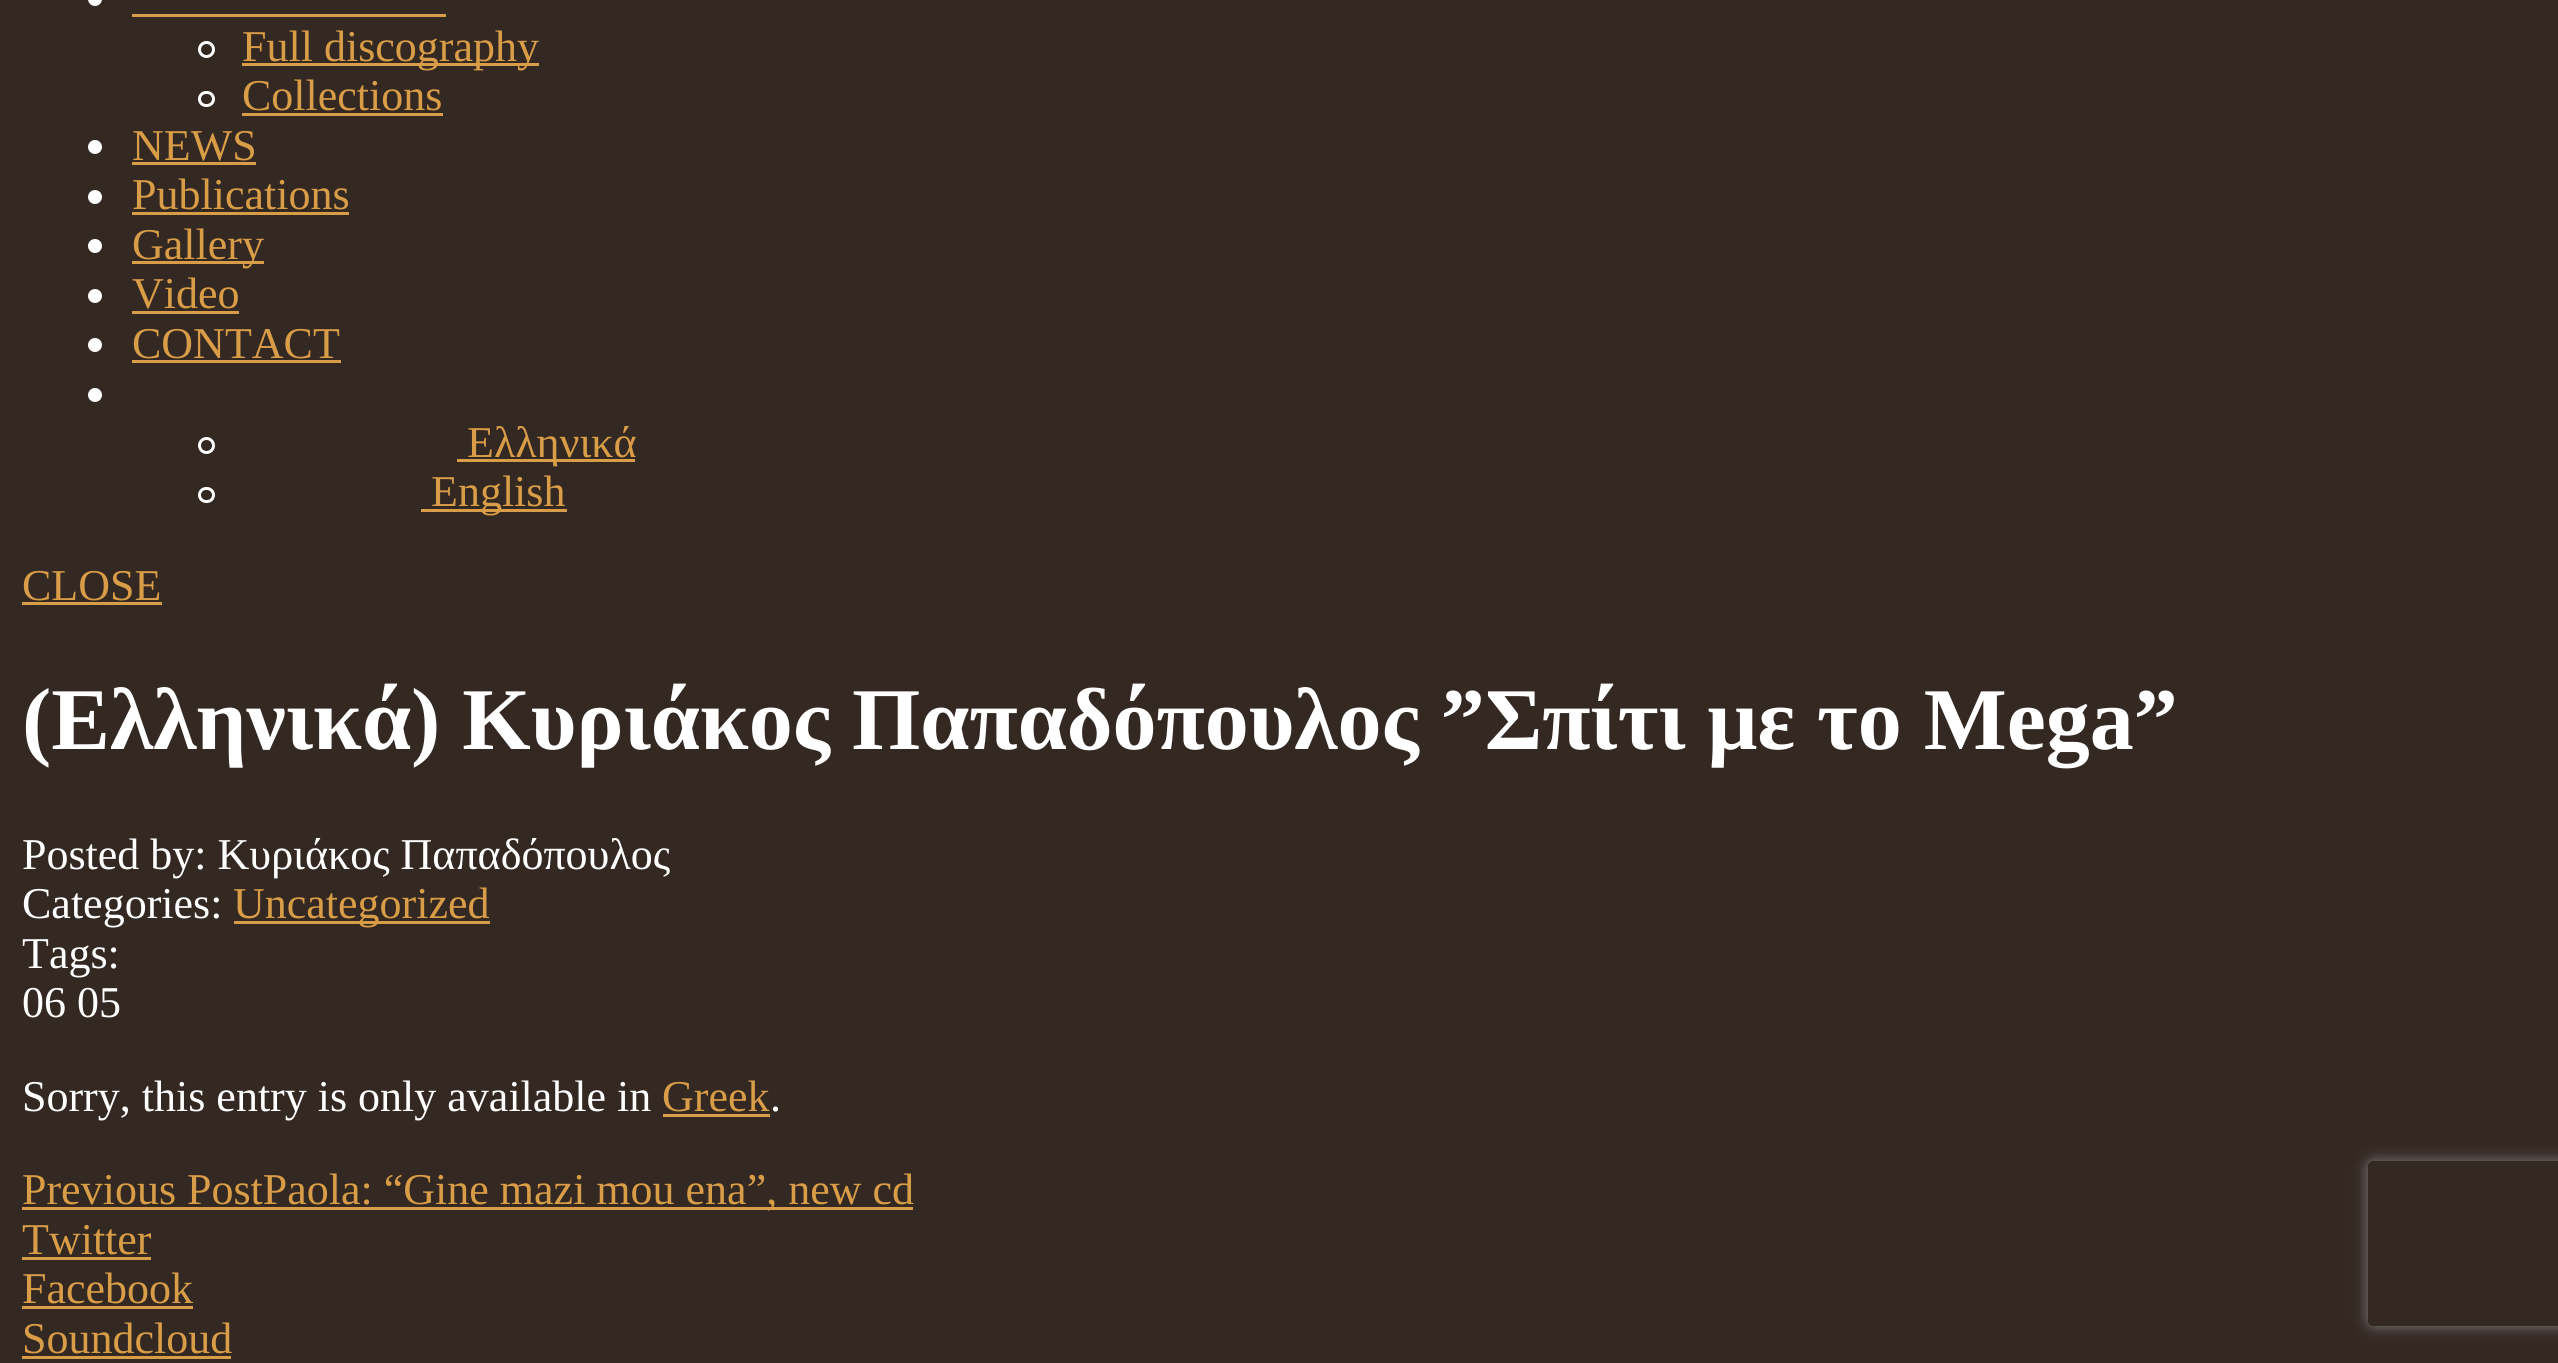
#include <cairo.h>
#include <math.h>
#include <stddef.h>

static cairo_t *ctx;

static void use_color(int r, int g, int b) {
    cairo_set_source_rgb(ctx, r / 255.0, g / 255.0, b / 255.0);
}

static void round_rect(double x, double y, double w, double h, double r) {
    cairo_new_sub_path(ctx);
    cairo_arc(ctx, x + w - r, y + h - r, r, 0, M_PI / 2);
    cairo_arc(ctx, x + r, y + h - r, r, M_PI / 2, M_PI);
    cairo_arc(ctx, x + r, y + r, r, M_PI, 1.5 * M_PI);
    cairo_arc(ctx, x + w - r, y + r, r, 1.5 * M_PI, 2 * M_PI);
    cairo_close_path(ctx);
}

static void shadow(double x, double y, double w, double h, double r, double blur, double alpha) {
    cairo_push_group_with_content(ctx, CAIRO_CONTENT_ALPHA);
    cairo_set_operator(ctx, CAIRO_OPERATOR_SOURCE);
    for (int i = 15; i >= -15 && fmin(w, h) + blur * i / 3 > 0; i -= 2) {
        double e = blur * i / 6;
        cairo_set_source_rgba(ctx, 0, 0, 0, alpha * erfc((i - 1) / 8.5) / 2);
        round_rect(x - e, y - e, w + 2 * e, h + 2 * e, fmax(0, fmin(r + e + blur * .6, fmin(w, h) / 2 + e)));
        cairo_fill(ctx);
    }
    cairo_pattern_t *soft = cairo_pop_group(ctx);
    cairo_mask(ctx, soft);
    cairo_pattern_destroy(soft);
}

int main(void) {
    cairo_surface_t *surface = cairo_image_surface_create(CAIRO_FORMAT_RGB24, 2558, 1363);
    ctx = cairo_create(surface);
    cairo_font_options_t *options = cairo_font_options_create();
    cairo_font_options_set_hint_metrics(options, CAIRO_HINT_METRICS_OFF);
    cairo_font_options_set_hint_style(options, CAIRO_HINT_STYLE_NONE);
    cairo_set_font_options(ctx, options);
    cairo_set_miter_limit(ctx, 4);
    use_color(51, 40, 34);
    cairo_paint(ctx);
    use_color(255, 255, 255);
    round_rect(88, -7, 14, 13, 7);
    cairo_fill(ctx);
    use_color(217, 157, 71);
    cairo_rectangle(ctx, 132, 14, 314, 3);
    cairo_fill(ctx);
    cairo_arc(ctx, 206.5, 49.5, 7, 0, 2 * M_PI);
    use_color(255, 255, 255);
    cairo_set_line_width(ctx, 3);
    cairo_stroke(ctx);
    use_color(217, 157, 71);
    cairo_rectangle(ctx, 242, 63, 297, 3);
    cairo_fill(ctx);
    cairo_select_font_face(ctx, "Liberation Serif", CAIRO_FONT_SLANT_NORMAL, CAIRO_FONT_WEIGHT_NORMAL);
    cairo_set_font_size(ctx, 44);
    cairo_move_to(ctx, 242, 61);
    cairo_show_text(ctx, "Full discography");
    round_rect(199.5, 92.5, 14, 13, 6.5);
    use_color(255, 255, 255);
    cairo_stroke(ctx);
    use_color(217, 157, 71);
    cairo_move_to(ctx, 242, 110);
    cairo_show_text(ctx, "Collections");
    cairo_rectangle(ctx, 242, 113, 201, 3);
    cairo_fill(ctx);
    use_color(255, 255, 255);
    cairo_arc(ctx, 95, 147, 7, 0, 2 * M_PI);
    cairo_fill(ctx);
    use_color(217, 157, 71);
    cairo_move_to(ctx, 132, 160);
    cairo_show_text(ctx, "NEWS");
    cairo_rectangle(ctx, 132, 162, 124, 3);
    cairo_fill(ctx);
    use_color(255, 255, 255);
    cairo_arc(ctx, 95, 197, 7, 0, 2 * M_PI);
    cairo_fill(ctx);
    use_color(217, 157, 71);
    cairo_move_to(ctx, 132, 209);
    cairo_show_text(ctx, "Publications");
    cairo_rectangle(ctx, 132, 212, 217, 3);
    cairo_fill(ctx);
    use_color(255, 255, 255);
    cairo_arc(ctx, 95, 246, 7, 0, 2 * M_PI);
    cairo_fill(ctx);
    use_color(217, 157, 71);
    cairo_rectangle(ctx, 132, 261, 132, 3);
    cairo_fill(ctx);
    cairo_move_to(ctx, 132, 259);
    cairo_show_text(ctx, "Gallery");
    use_color(255, 255, 255);
    cairo_new_path(ctx);
    cairo_arc(ctx, 95, 296, 7, 0, 2 * M_PI);
    cairo_fill(ctx);
    use_color(217, 157, 71);
    cairo_move_to(ctx, 132, 308);
    cairo_show_text(ctx, "Video");
    cairo_rectangle(ctx, 132, 311, 107, 3);
    cairo_fill(ctx);
    use_color(255, 255, 255);
    cairo_arc(ctx, 95, 345, 7, 0, 2 * M_PI);
    cairo_fill(ctx);
    use_color(217, 157, 71);
    cairo_move_to(ctx, 132, 358);
    cairo_show_text(ctx, "CONTACT");
    cairo_rectangle(ctx, 132, 360, 209, 3);
    cairo_fill(ctx);
    use_color(255, 255, 255);
    cairo_arc(ctx, 95, 395, 7, 0, 2 * M_PI);
    cairo_fill(ctx);
    cairo_arc(ctx, 206.5, 445.5, 7, 0, 2 * M_PI);
    cairo_stroke(ctx);
    use_color(217, 157, 71);
    cairo_rectangle(ctx, 457, 459, 178, 3);
    cairo_fill(ctx);
    cairo_move_to(ctx, 467, 457);
    cairo_show_text(ctx, "Ελληνικά");
    round_rect(199.5, 488.5, 14, 13, 6.5);
    use_color(255, 255, 255);
    cairo_stroke(ctx);
    use_color(217, 157, 71);
    cairo_rectangle(ctx, 421, 509, 146, 3);
    cairo_fill(ctx);
    cairo_move_to(ctx, 431, 506);
    cairo_show_text(ctx, "English");
    cairo_move_to(ctx, 22, 600);
    cairo_show_text(ctx, "CLOSE");
    cairo_rectangle(ctx, 22, 602, 140, 3);
    cairo_fill(ctx);
    cairo_select_font_face(ctx, "Liberation Serif", CAIRO_FONT_SLANT_NORMAL, CAIRO_FONT_WEIGHT_BOLD);
    cairo_set_font_size(ctx, 88);
    use_color(255, 255, 255);
    cairo_move_to(ctx, 22, 749);
    cairo_show_text(ctx, "(Ελληνικά) Κυριάκος Παπαδόπουλος ”Σπίτι με το Mega”");
    cairo_select_font_face(ctx, "Liberation Serif", CAIRO_FONT_SLANT_NORMAL, CAIRO_FONT_WEIGHT_NORMAL);
    cairo_set_font_size(ctx, 44);
    cairo_move_to(ctx, 22, 869);
    cairo_show_text(ctx, "Posted by: Κυριάκος Παπαδόπουλος");
    cairo_move_to(ctx, 22, 918);
    cairo_show_text(ctx, "Categories:");
    use_color(217, 157, 71);
    cairo_rectangle(ctx, 234, 921, 256, 3);
    cairo_fill(ctx);
    cairo_move_to(ctx, 233, 918);
    cairo_show_text(ctx, "Uncategorized");
    use_color(255, 255, 255);
    cairo_move_to(ctx, 22, 968);
    cairo_show_text(ctx, "Tags:");
    cairo_move_to(ctx, 22, 1017);
    cairo_show_text(ctx, "06 05");
    cairo_move_to(ctx, 22, 1111);
    cairo_show_text(ctx, "Sorry, this entry is only available in");
    use_color(217, 157, 71);
    cairo_move_to(ctx, 662, 1111);
    cairo_show_text(ctx, "Greek");
    cairo_rectangle(ctx, 663, 1114, 107, 3);
    cairo_fill(ctx);
    use_color(255, 255, 255);
    cairo_move_to(ctx, 770, 1111);
    cairo_show_text(ctx, ".");
    use_color(217, 157, 71);
    cairo_rectangle(ctx, 22, 1207, 891, 3);
    cairo_fill(ctx);
    cairo_move_to(ctx, 22, 1204);
    cairo_show_text(ctx, "Previous PostPaola: “Gine mazi mou ena”, new cd");
    cairo_move_to(ctx, 22, 1254);
    cairo_show_text(ctx, "Twitter");
    cairo_rectangle(ctx, 22, 1257, 129, 3);
    cairo_fill(ctx);
    cairo_move_to(ctx, 22, 1303);
    cairo_show_text(ctx, "Facebook");
    cairo_rectangle(ctx, 22, 1306, 171, 3);
    cairo_fill(ctx);
    cairo_move_to(ctx, 22, 1353);
    cairo_show_text(ctx, "Soundcloud");
    cairo_rectangle(ctx, 22, 1356, 209, 3);
    cairo_fill(ctx);
    cairo_save(ctx);
    cairo_set_fill_rule(ctx, CAIRO_FILL_RULE_EVEN_ODD);
    cairo_new_path(ctx);
    cairo_move_to(ctx, 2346, 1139);
    cairo_line_to(ctx, 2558, 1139);
    cairo_line_to(ctx, 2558, 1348);
    cairo_line_to(ctx, 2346, 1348);
    cairo_close_path(ctx);
    cairo_move_to(ctx, 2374, 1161);
    cairo_line_to(ctx, 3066, 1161);
    cairo_curve_to(ctx, 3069.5, 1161, 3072, 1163.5, 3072, 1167);
    cairo_line_to(ctx, 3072, 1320);
    cairo_curve_to(ctx, 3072, 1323.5, 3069.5, 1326, 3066, 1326);
    cairo_line_to(ctx, 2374, 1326);
    cairo_curve_to(ctx, 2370.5, 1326, 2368, 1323.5, 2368, 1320);
    cairo_line_to(ctx, 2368, 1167);
    cairo_curve_to(ctx, 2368, 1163.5, 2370.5, 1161, 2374, 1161);
    cairo_close_path(ctx);
    cairo_clip(ctx);
    use_color(128, 128, 128);
    shadow(2368, 1161, 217, 165, 6, 7, 1);
    cairo_restore(ctx);
    cairo_surface_write_to_png(surface, "result.png");
    cairo_font_options_destroy(options);
    cairo_destroy(ctx);
    cairo_surface_destroy(surface);
    return 0;
}
